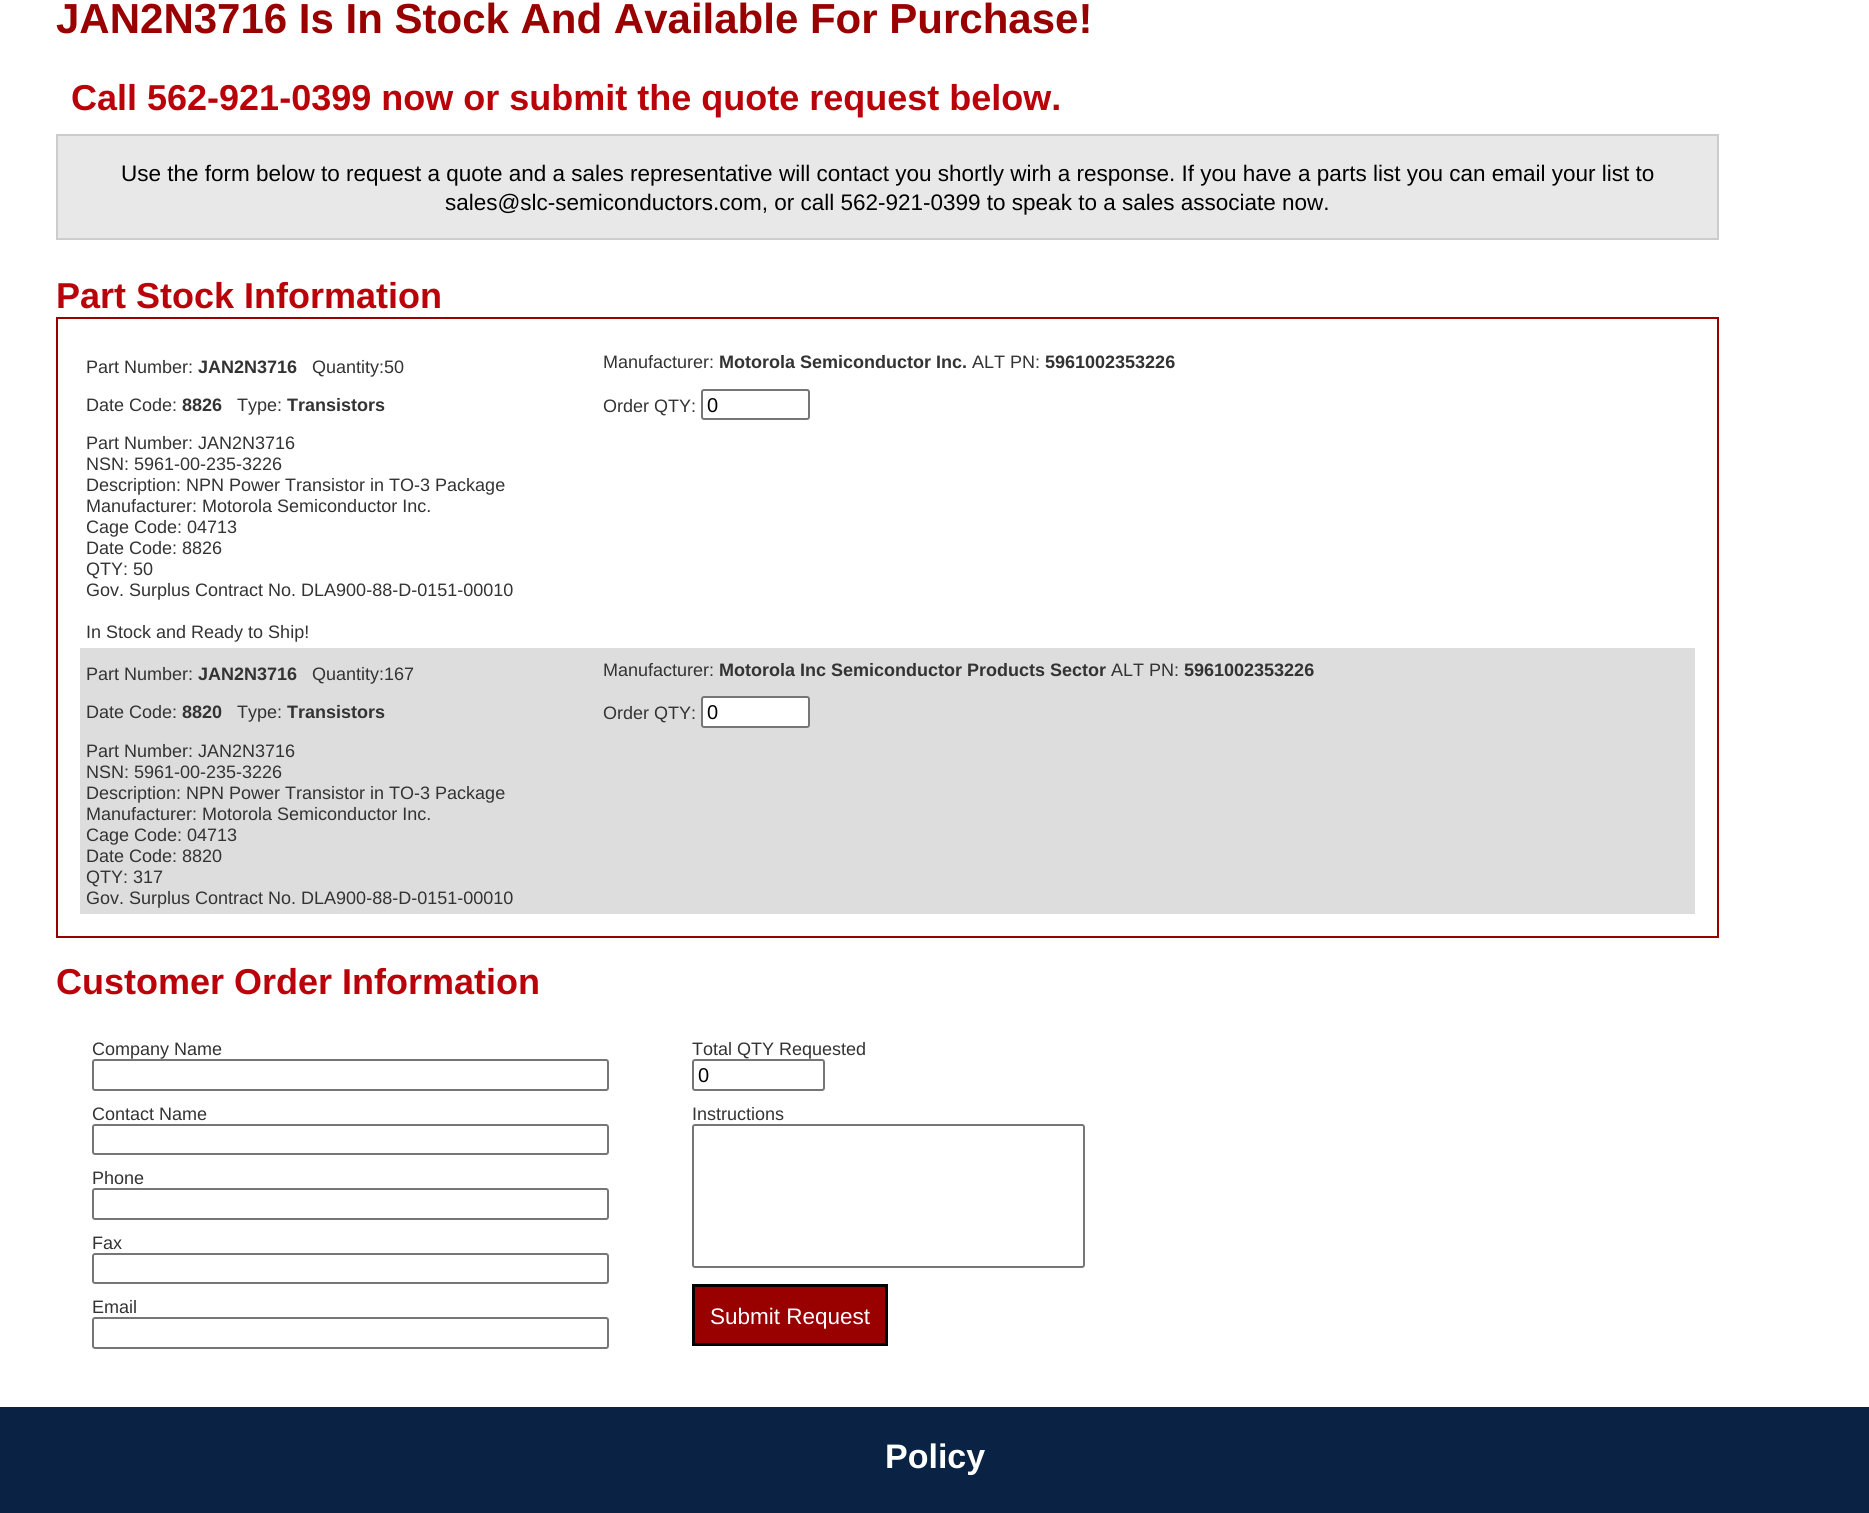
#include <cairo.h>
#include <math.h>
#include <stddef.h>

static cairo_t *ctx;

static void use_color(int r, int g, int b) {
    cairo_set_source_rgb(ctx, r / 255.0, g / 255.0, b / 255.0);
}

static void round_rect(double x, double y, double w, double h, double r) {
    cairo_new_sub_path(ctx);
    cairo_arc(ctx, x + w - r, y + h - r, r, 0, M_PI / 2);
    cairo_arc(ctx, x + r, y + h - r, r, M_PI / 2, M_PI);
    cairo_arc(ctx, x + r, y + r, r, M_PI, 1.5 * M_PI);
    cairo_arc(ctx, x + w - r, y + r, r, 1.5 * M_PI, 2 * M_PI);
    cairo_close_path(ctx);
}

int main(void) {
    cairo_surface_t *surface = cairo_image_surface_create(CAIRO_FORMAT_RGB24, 1869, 1513);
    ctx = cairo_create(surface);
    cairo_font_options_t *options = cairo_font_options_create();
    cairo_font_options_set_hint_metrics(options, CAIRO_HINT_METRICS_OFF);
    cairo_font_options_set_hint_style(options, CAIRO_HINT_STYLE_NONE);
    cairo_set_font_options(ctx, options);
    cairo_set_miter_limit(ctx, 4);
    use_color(255, 255, 255);
    cairo_paint(ctx);
    cairo_select_font_face(ctx, "Liberation Sans", CAIRO_FONT_SLANT_NORMAL, CAIRO_FONT_WEIGHT_BOLD);
    cairo_set_font_size(ctx, 42);
    use_color(153, 0, 0);
    cairo_move_to(ctx, 56, 33);
    cairo_show_text(ctx, "JAN2N3716 Is In Stock And Available For Purchase!");
    cairo_set_font_size(ctx, 36);
    use_color(186, 2, 10);
    cairo_move_to(ctx, 71, 110);
    cairo_show_text(ctx, "Call 562-921-0399 now or submit the quote request below.");
    use_color(232, 232, 232);
    cairo_rectangle(ctx, 57, 135, 1661, 104);
    cairo_fill_preserve(ctx);
    use_color(204, 204, 204);
    cairo_stroke(ctx);
    cairo_select_font_face(ctx, "Liberation Sans", CAIRO_FONT_SLANT_NORMAL, CAIRO_FONT_WEIGHT_NORMAL);
    cairo_set_font_size(ctx, 22.5);
    use_color(0, 0, 0);
    cairo_move_to(ctx, 121, 181);
    cairo_show_text(ctx, "Use the form below to request a quote and a sales representative will contact you shortly wirh a response. If you have a parts list you can email your list to");
    cairo_move_to(ctx, 445, 210);
    cairo_show_text(ctx, "sales@slc-semiconductors.com, or call 562-921-0399 to speak to a sales associate now.");
    cairo_select_font_face(ctx, "Liberation Sans", CAIRO_FONT_SLANT_NORMAL, CAIRO_FONT_WEIGHT_BOLD);
    cairo_set_font_size(ctx, 36);
    use_color(186, 2, 10);
    cairo_move_to(ctx, 56, 308);
    cairo_show_text(ctx, "Part Stock Information");
    cairo_rectangle(ctx, 57, 318, 1661, 619);
    use_color(153, 0, 0);
    cairo_stroke(ctx);
    cairo_select_font_face(ctx, "Liberation Sans", CAIRO_FONT_SLANT_NORMAL, CAIRO_FONT_WEIGHT_NORMAL);
    cairo_set_font_size(ctx, 18);
    use_color(51, 51, 51);
    cairo_move_to(ctx, 86, 373);
    cairo_show_text(ctx, "Part Number:");
    cairo_select_font_face(ctx, "Liberation Sans", CAIRO_FONT_SLANT_NORMAL, CAIRO_FONT_WEIGHT_BOLD);
    cairo_move_to(ctx, 198, 373);
    cairo_show_text(ctx, "JAN2N3716");
    cairo_select_font_face(ctx, "Liberation Sans", CAIRO_FONT_SLANT_NORMAL, CAIRO_FONT_WEIGHT_NORMAL);
    cairo_move_to(ctx, 312, 373);
    cairo_show_text(ctx, "Quantity:50");
    cairo_move_to(ctx, 603, 368);
    cairo_show_text(ctx, "Manufacturer:");
    cairo_select_font_face(ctx, "Liberation Sans", CAIRO_FONT_SLANT_NORMAL, CAIRO_FONT_WEIGHT_BOLD);
    cairo_move_to(ctx, 719, 368);
    cairo_show_text(ctx, "Motorola Semiconductor Inc.");
    cairo_select_font_face(ctx, "Liberation Sans", CAIRO_FONT_SLANT_NORMAL, CAIRO_FONT_WEIGHT_NORMAL);
    cairo_move_to(ctx, 972, 368);
    cairo_show_text(ctx, "ALT PN:");
    cairo_select_font_face(ctx, "Liberation Sans", CAIRO_FONT_SLANT_NORMAL, CAIRO_FONT_WEIGHT_BOLD);
    cairo_move_to(ctx, 1045, 368);
    cairo_show_text(ctx, "5961002353226");
    cairo_select_font_face(ctx, "Liberation Sans", CAIRO_FONT_SLANT_NORMAL, CAIRO_FONT_WEIGHT_NORMAL);
    cairo_move_to(ctx, 86, 411);
    cairo_show_text(ctx, "Date Code:");
    cairo_select_font_face(ctx, "Liberation Sans", CAIRO_FONT_SLANT_NORMAL, CAIRO_FONT_WEIGHT_BOLD);
    cairo_move_to(ctx, 182, 411);
    cairo_show_text(ctx, "8826");
    cairo_select_font_face(ctx, "Liberation Sans", CAIRO_FONT_SLANT_NORMAL, CAIRO_FONT_WEIGHT_NORMAL);
    cairo_move_to(ctx, 237, 411);
    cairo_show_text(ctx, "Type:");
    cairo_select_font_face(ctx, "Liberation Sans", CAIRO_FONT_SLANT_NORMAL, CAIRO_FONT_WEIGHT_BOLD);
    cairo_move_to(ctx, 287, 411);
    cairo_show_text(ctx, "Transistors");
    cairo_select_font_face(ctx, "Liberation Sans", CAIRO_FONT_SLANT_NORMAL, CAIRO_FONT_WEIGHT_NORMAL);
    cairo_move_to(ctx, 603, 412);
    cairo_show_text(ctx, "Order QTY:");
    round_rect(702, 390, 107, 29, 2);
    use_color(118, 118, 118);
    cairo_stroke(ctx);
    cairo_set_font_size(ctx, 20);
    use_color(0, 0, 0);
    cairo_move_to(ctx, 707, 412);
    cairo_show_text(ctx, "0");
    cairo_set_font_size(ctx, 18);
    use_color(51, 51, 51);
    cairo_move_to(ctx, 86, 449);
    cairo_show_text(ctx, "Part Number: JAN2N3716");
    cairo_move_to(ctx, 86, 470);
    cairo_show_text(ctx, "NSN: 5961-00-235-3226");
    cairo_move_to(ctx, 86, 491);
    cairo_show_text(ctx, "Description: NPN Power Transistor in TO-3 Package");
    cairo_move_to(ctx, 86, 512);
    cairo_show_text(ctx, "Manufacturer: Motorola Semiconductor Inc.");
    cairo_move_to(ctx, 86, 533);
    cairo_show_text(ctx, "Cage Code: 04713");
    cairo_move_to(ctx, 86, 554);
    cairo_show_text(ctx, "Date Code: 8826");
    cairo_move_to(ctx, 86, 575);
    cairo_show_text(ctx, "QTY: 50");
    cairo_move_to(ctx, 86, 596);
    cairo_show_text(ctx, "Gov. Surplus Contract No. DLA900-88-D-0151-00010");
    cairo_move_to(ctx, 86, 638);
    cairo_show_text(ctx, "In Stock and Ready to Ship!");
    use_color(221, 221, 221);
    cairo_rectangle(ctx, 80, 648, 1615, 42);
    cairo_fill(ctx);
    use_color(51, 51, 51);
    cairo_move_to(ctx, 86, 680);
    cairo_show_text(ctx, "Part Number:");
    cairo_select_font_face(ctx, "Liberation Sans", CAIRO_FONT_SLANT_NORMAL, CAIRO_FONT_WEIGHT_BOLD);
    cairo_move_to(ctx, 198, 680);
    cairo_show_text(ctx, "JAN2N3716");
    cairo_select_font_face(ctx, "Liberation Sans", CAIRO_FONT_SLANT_NORMAL, CAIRO_FONT_WEIGHT_NORMAL);
    cairo_move_to(ctx, 312, 680);
    cairo_show_text(ctx, "Quantity:167");
    cairo_move_to(ctx, 603, 676);
    cairo_show_text(ctx, "Manufacturer:");
    cairo_select_font_face(ctx, "Liberation Sans", CAIRO_FONT_SLANT_NORMAL, CAIRO_FONT_WEIGHT_BOLD);
    cairo_move_to(ctx, 719, 676);
    cairo_show_text(ctx, "Motorola Inc Semiconductor Products Sector");
    cairo_select_font_face(ctx, "Liberation Sans", CAIRO_FONT_SLANT_NORMAL, CAIRO_FONT_WEIGHT_NORMAL);
    cairo_move_to(ctx, 1111, 676);
    cairo_show_text(ctx, "ALT PN:");
    cairo_select_font_face(ctx, "Liberation Sans", CAIRO_FONT_SLANT_NORMAL, CAIRO_FONT_WEIGHT_BOLD);
    cairo_move_to(ctx, 1184, 676);
    cairo_show_text(ctx, "5961002353226");
    use_color(221, 221, 221);
    cairo_rectangle(ctx, 80, 690, 1615, 224);
    cairo_fill(ctx);
    cairo_select_font_face(ctx, "Liberation Sans", CAIRO_FONT_SLANT_NORMAL, CAIRO_FONT_WEIGHT_NORMAL);
    use_color(51, 51, 51);
    cairo_move_to(ctx, 86, 718);
    cairo_show_text(ctx, "Date Code:");
    cairo_select_font_face(ctx, "Liberation Sans", CAIRO_FONT_SLANT_NORMAL, CAIRO_FONT_WEIGHT_BOLD);
    cairo_move_to(ctx, 182, 718);
    cairo_show_text(ctx, "8820");
    cairo_select_font_face(ctx, "Liberation Sans", CAIRO_FONT_SLANT_NORMAL, CAIRO_FONT_WEIGHT_NORMAL);
    cairo_move_to(ctx, 237, 718);
    cairo_show_text(ctx, "Type:");
    cairo_select_font_face(ctx, "Liberation Sans", CAIRO_FONT_SLANT_NORMAL, CAIRO_FONT_WEIGHT_BOLD);
    cairo_move_to(ctx, 287, 718);
    cairo_show_text(ctx, "Transistors");
    cairo_select_font_face(ctx, "Liberation Sans", CAIRO_FONT_SLANT_NORMAL, CAIRO_FONT_WEIGHT_NORMAL);
    cairo_move_to(ctx, 603, 719);
    cairo_show_text(ctx, "Order QTY:");
    use_color(255, 255, 255);
    round_rect(702, 697, 107, 30, 2);
    cairo_fill_preserve(ctx);
    use_color(118, 118, 118);
    cairo_stroke(ctx);
    cairo_set_font_size(ctx, 20);
    use_color(0, 0, 0);
    cairo_move_to(ctx, 707, 719);
    cairo_show_text(ctx, "0");
    cairo_set_font_size(ctx, 18);
    use_color(51, 51, 51);
    cairo_move_to(ctx, 86, 757);
    cairo_show_text(ctx, "Part Number: JAN2N3716");
    cairo_move_to(ctx, 86, 778);
    cairo_show_text(ctx, "NSN: 5961-00-235-3226");
    cairo_move_to(ctx, 86, 799);
    cairo_show_text(ctx, "Description: NPN Power Transistor in TO-3 Package");
    cairo_move_to(ctx, 86, 820);
    cairo_show_text(ctx, "Manufacturer: Motorola Semiconductor Inc.");
    cairo_move_to(ctx, 86, 841);
    cairo_show_text(ctx, "Cage Code: 04713");
    cairo_move_to(ctx, 86, 862);
    cairo_show_text(ctx, "Date Code: 8820");
    cairo_move_to(ctx, 86, 883);
    cairo_show_text(ctx, "QTY: 317");
    cairo_move_to(ctx, 86, 904);
    cairo_show_text(ctx, "Gov. Surplus Contract No. DLA900-88-D-0151-00010");
    cairo_select_font_face(ctx, "Liberation Sans", CAIRO_FONT_SLANT_NORMAL, CAIRO_FONT_WEIGHT_BOLD);
    cairo_set_font_size(ctx, 36);
    use_color(186, 2, 10);
    cairo_move_to(ctx, 56, 994);
    cairo_show_text(ctx, "Customer Order Information");
    cairo_select_font_face(ctx, "Liberation Sans", CAIRO_FONT_SLANT_NORMAL, CAIRO_FONT_WEIGHT_NORMAL);
    cairo_set_font_size(ctx, 18);
    use_color(51, 51, 51);
    cairo_move_to(ctx, 92, 1055);
    cairo_show_text(ctx, "Company Name");
    round_rect(93, 1060, 515, 30, 2);
    use_color(118, 118, 118);
    cairo_stroke(ctx);
    use_color(51, 51, 51);
    cairo_move_to(ctx, 92, 1120);
    cairo_show_text(ctx, "Contact Name");
    round_rect(93, 1125, 515, 29, 2);
    use_color(118, 118, 118);
    cairo_stroke(ctx);
    use_color(51, 51, 51);
    cairo_move_to(ctx, 92, 1184);
    cairo_show_text(ctx, "Phone");
    round_rect(93, 1189, 515, 30, 2);
    use_color(118, 118, 118);
    cairo_stroke(ctx);
    use_color(51, 51, 51);
    cairo_move_to(ctx, 92, 1249);
    cairo_show_text(ctx, "Fax");
    round_rect(93, 1254, 515, 29, 2);
    use_color(118, 118, 118);
    cairo_stroke(ctx);
    use_color(51, 51, 51);
    cairo_move_to(ctx, 92, 1313);
    cairo_show_text(ctx, "Email");
    round_rect(93, 1318, 515, 30, 2);
    use_color(118, 118, 118);
    cairo_stroke(ctx);
    use_color(51, 51, 51);
    cairo_move_to(ctx, 692, 1055);
    cairo_show_text(ctx, "Total QTY Requested");
    round_rect(693, 1060, 131, 30, 2);
    use_color(118, 118, 118);
    cairo_stroke(ctx);
    cairo_set_font_size(ctx, 20);
    use_color(0, 0, 0);
    cairo_move_to(ctx, 698, 1082);
    cairo_show_text(ctx, "0");
    cairo_set_font_size(ctx, 18);
    use_color(51, 51, 51);
    cairo_move_to(ctx, 692, 1120);
    cairo_show_text(ctx, "Instructions");
    round_rect(693, 1125, 391, 142, 2);
    use_color(118, 118, 118);
    cairo_stroke(ctx);
    use_color(153, 0, 0);
    cairo_rectangle(ctx, 693.5, 1285.5, 193, 59);
    cairo_fill_preserve(ctx);
    use_color(0, 0, 0);
    cairo_set_line_width(ctx, 3);
    cairo_stroke(ctx);
    cairo_set_font_size(ctx, 22.5);
    use_color(255, 255, 255);
    cairo_move_to(ctx, 710, 1324);
    cairo_show_text(ctx, "Submit Request");
    use_color(10, 34, 68);
    cairo_rectangle(ctx, 0, 1407, 1869, 106);
    cairo_fill(ctx);
    cairo_select_font_face(ctx, "Liberation Sans", CAIRO_FONT_SLANT_NORMAL, CAIRO_FONT_WEIGHT_BOLD);
    cairo_set_font_size(ctx, 34);
    use_color(255, 255, 255);
    cairo_move_to(ctx, 885, 1468);
    cairo_show_text(ctx, "Policy");
    cairo_surface_write_to_png(surface, "result.png");
    cairo_font_options_destroy(options);
    cairo_destroy(ctx);
    cairo_surface_destroy(surface);
    return 0;
}
